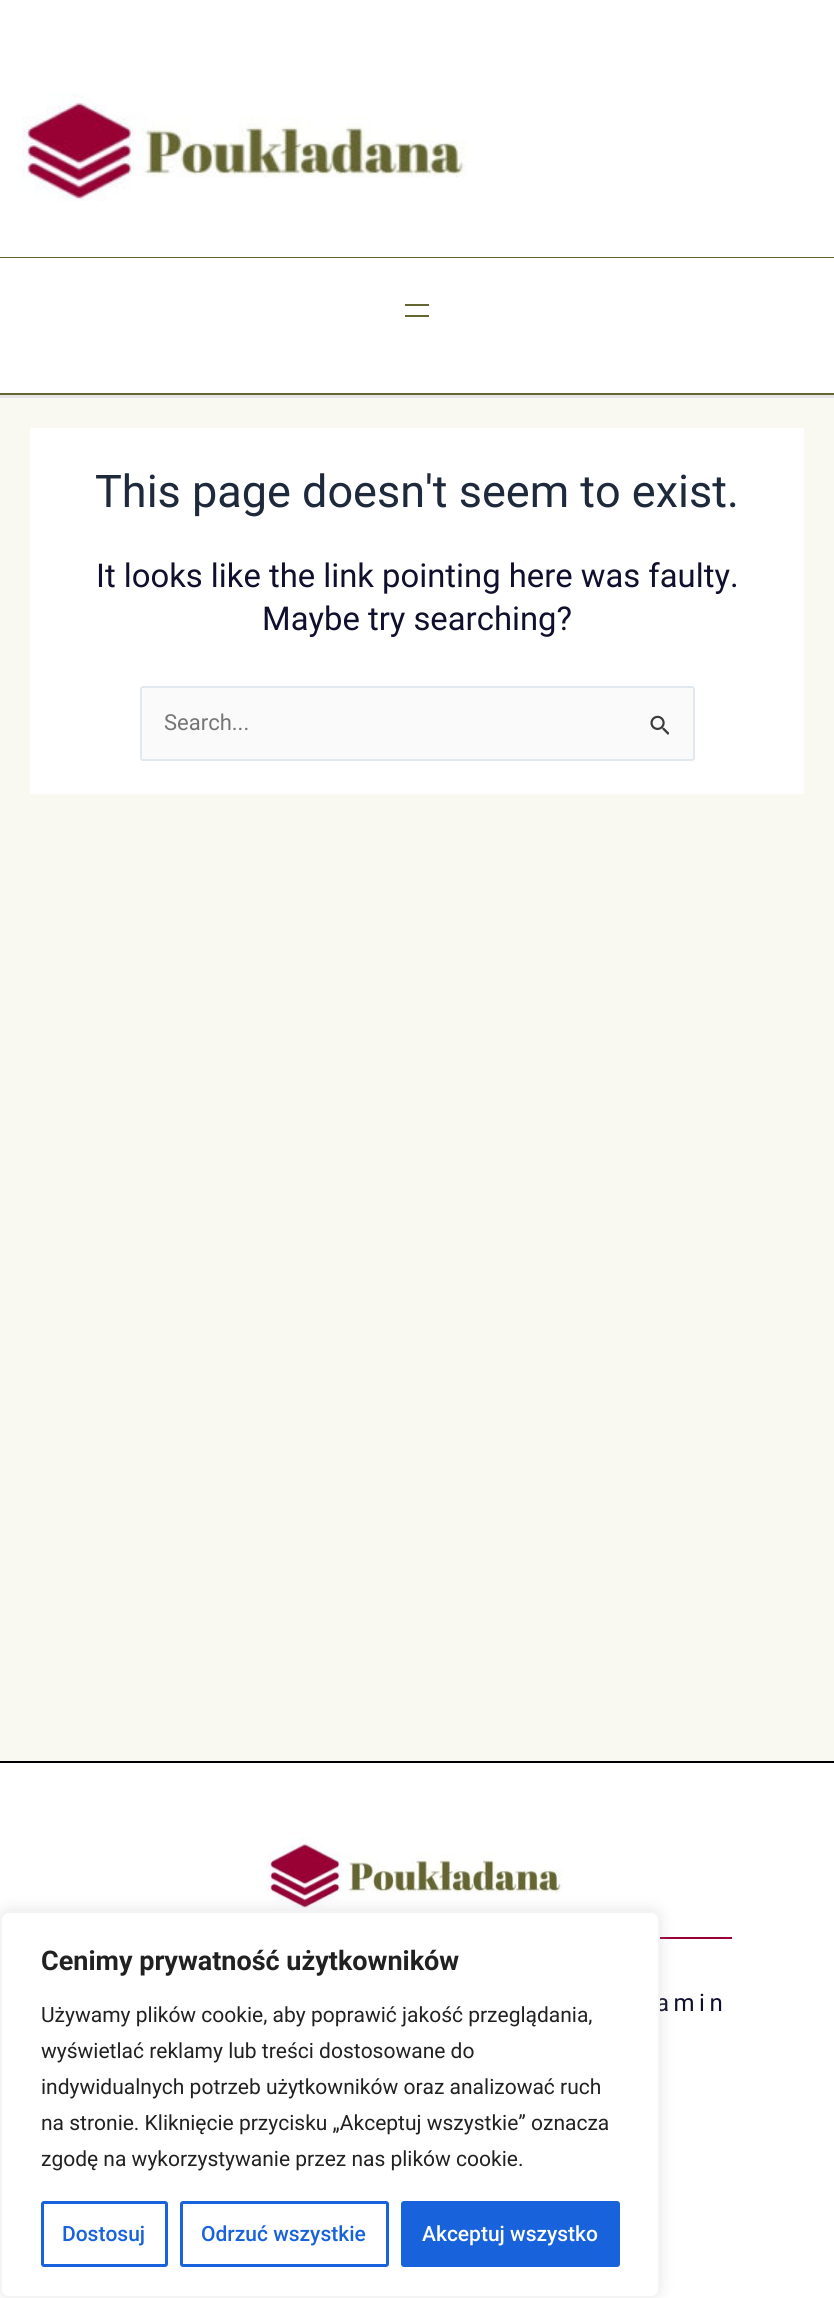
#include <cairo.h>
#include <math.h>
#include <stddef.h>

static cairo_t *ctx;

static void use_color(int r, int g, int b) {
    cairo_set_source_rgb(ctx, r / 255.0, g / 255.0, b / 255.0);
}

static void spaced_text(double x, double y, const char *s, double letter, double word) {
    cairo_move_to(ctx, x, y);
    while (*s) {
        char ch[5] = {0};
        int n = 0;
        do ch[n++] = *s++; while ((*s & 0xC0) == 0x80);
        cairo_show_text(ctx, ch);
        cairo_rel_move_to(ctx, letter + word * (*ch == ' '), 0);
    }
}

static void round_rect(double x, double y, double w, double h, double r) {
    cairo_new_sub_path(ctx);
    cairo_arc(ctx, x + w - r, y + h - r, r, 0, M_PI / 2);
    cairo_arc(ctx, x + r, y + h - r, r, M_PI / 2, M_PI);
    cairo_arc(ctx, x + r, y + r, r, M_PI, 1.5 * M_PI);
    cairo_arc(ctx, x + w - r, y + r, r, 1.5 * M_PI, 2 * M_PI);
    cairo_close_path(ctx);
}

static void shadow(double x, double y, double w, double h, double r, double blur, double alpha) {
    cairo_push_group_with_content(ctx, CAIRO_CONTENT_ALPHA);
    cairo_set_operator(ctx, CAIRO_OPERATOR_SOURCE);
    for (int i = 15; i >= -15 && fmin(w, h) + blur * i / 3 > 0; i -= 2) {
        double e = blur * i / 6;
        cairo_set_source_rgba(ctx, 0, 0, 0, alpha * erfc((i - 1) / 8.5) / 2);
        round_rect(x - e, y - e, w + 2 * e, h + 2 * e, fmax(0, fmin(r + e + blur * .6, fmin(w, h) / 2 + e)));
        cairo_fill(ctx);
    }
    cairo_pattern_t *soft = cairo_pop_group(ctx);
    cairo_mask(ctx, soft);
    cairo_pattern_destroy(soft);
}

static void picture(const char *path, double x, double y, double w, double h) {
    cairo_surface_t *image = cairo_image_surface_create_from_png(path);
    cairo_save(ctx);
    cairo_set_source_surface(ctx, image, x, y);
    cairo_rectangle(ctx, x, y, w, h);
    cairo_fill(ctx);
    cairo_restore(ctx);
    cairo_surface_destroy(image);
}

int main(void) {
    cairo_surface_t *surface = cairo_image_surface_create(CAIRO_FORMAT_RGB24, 834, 2298);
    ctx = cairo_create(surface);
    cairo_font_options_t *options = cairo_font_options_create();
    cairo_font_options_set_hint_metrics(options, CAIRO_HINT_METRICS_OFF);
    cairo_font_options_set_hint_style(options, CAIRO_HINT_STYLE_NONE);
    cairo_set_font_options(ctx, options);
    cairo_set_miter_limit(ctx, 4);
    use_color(249, 249, 241);
    cairo_paint(ctx);
    use_color(255, 255, 255);
    cairo_rectangle(ctx, 0, 0, 834, 257);
    cairo_fill(ctx);
    use_color(102, 102, 51);
    cairo_rectangle(ctx, 0, 257, 834, 1);
    cairo_fill(ctx);
    picture("img1.png", 22, 93, 445, 108);
    use_color(230, 230, 230);
    cairo_rectangle(ctx, 0, 395, 834, 3);
    cairo_fill(ctx);
    use_color(255, 255, 255);
    cairo_rectangle(ctx, 0, 258, 834, 135);
    cairo_fill(ctx);
    use_color(102, 102, 51);
    cairo_rectangle(ctx, 0, 393, 834, 2);
    cairo_fill(ctx);
    cairo_rectangle(ctx, 405, 304, 24, 2);
    cairo_fill(ctx);
    cairo_rectangle(ctx, 405, 315, 24, 2);
    cairo_fill(ctx);
    use_color(255, 255, 255);
    cairo_rectangle(ctx, 30, 428, 774, 366);
    cairo_fill(ctx);
    cairo_select_font_face(ctx, "Roboto", CAIRO_FONT_SLANT_NORMAL, CAIRO_FONT_WEIGHT_NORMAL);
    cairo_set_font_size(ctx, 45);
    use_color(30, 41, 59);
    cairo_move_to(ctx, 95, 507);
    cairo_show_text(ctx, "This page doesn't seem to exist.");
    cairo_set_font_size(ctx, 32.8);
    use_color(16, 16, 46);
    cairo_move_to(ctx, 96, 587);
    cairo_show_text(ctx, "It looks like the link pointing here was faulty.");
    cairo_move_to(ctx, 262, 630);
    cairo_show_text(ctx, "Maybe try searching?");
    use_color(250, 250, 250);
    round_rect(141, 687, 553, 73, 2);
    cairo_fill_preserve(ctx);
    use_color(226, 232, 240);
    cairo_stroke(ctx);
    cairo_set_font_size(ctx, 22);
    use_color(117, 117, 117);
    cairo_move_to(ctx, 164, 730);
    cairo_show_text(ctx, "Search...");
    picture("img2.png", 650, 715, 19, 20);
    use_color(255, 255, 255);
    cairo_rectangle(ctx, 0, 1763, 834, 535);
    cairo_fill(ctx);
    use_color(0, 0, 0);
    cairo_rectangle(ctx, 0, 1761, 834, 2);
    cairo_fill(ctx);
    picture("img3.png", 267, 1837, 296, 72);
    use_color(153, 0, 51);
    cairo_rectangle(ctx, 660, 1937, 72, 2);
    cairo_fill(ctx);
    cairo_set_font_size(ctx, 24);
    use_color(16, 16, 46);
    spaced_text(656, 2011, "amin", 4.5, 0);
    use_color(172, 171, 171);
    shadow(0, 1910, 660, 387, 9, 7.5, 0.3);
    use_color(255, 255, 255);
    round_rect(1, 1912, 658, 385, 8);
    cairo_fill_preserve(ctx);
    use_color(244, 244, 244);
    cairo_stroke(ctx);
    cairo_select_font_face(ctx, "Roboto", CAIRO_FONT_SLANT_NORMAL, CAIRO_FONT_WEIGHT_BOLD);
    cairo_set_font_size(ctx, 27);
    use_color(33, 33, 33);
    cairo_move_to(ctx, 41, 1970);
    cairo_show_text(ctx, "Cenimy prywatność użytkowników");
    cairo_select_font_face(ctx, "Roboto", CAIRO_FONT_SLANT_NORMAL, CAIRO_FONT_WEIGHT_NORMAL);
    cairo_set_font_size(ctx, 21);
    cairo_move_to(ctx, 41, 2022);
    cairo_show_text(ctx, "Używamy plików cookie, aby poprawić jakość przeglądania,");
    cairo_move_to(ctx, 41, 2058);
    cairo_show_text(ctx, "wyświetlać reklamy lub treści dostosowane do");
    cairo_move_to(ctx, 41, 2094);
    cairo_show_text(ctx, "indywidualnych potrzeb użytkowników oraz analizować ruch");
    cairo_move_to(ctx, 41, 2130);
    cairo_show_text(ctx, "na stronie. Kliknięcie przycisku „Akceptuj wszystkie” oznacza");
    cairo_move_to(ctx, 41, 2166);
    cairo_show_text(ctx, "zgodę na wykorzystywanie przez nas plików cookie.");
    round_rect(42.5, 2202.5, 124, 63, 1.5);
    use_color(24, 99, 220);
    cairo_set_line_width(ctx, 3);
    cairo_stroke(ctx);
    cairo_select_font_face(ctx, "Roboto Medium", CAIRO_FONT_SLANT_NORMAL, CAIRO_FONT_WEIGHT_NORMAL);
    cairo_move_to(ctx, 62, 2241);
    cairo_show_text(ctx, "Dostosuj");
    round_rect(181.5, 2202.5, 206, 63, 1.5);
    cairo_stroke(ctx);
    cairo_move_to(ctx, 201, 2241);
    cairo_show_text(ctx, "Odrzuć wszystkie");
    round_rect(402.5, 2202.5, 216, 63, 1.5);
    cairo_fill_preserve(ctx);
    cairo_stroke(ctx);
    use_color(255, 255, 255);
    cairo_move_to(ctx, 422, 2241);
    cairo_show_text(ctx, "Akceptuj wszystko");
    cairo_surface_write_to_png(surface, "result.png");
    cairo_font_options_destroy(options);
    cairo_destroy(ctx);
    cairo_surface_destroy(surface);
    return 0;
}
